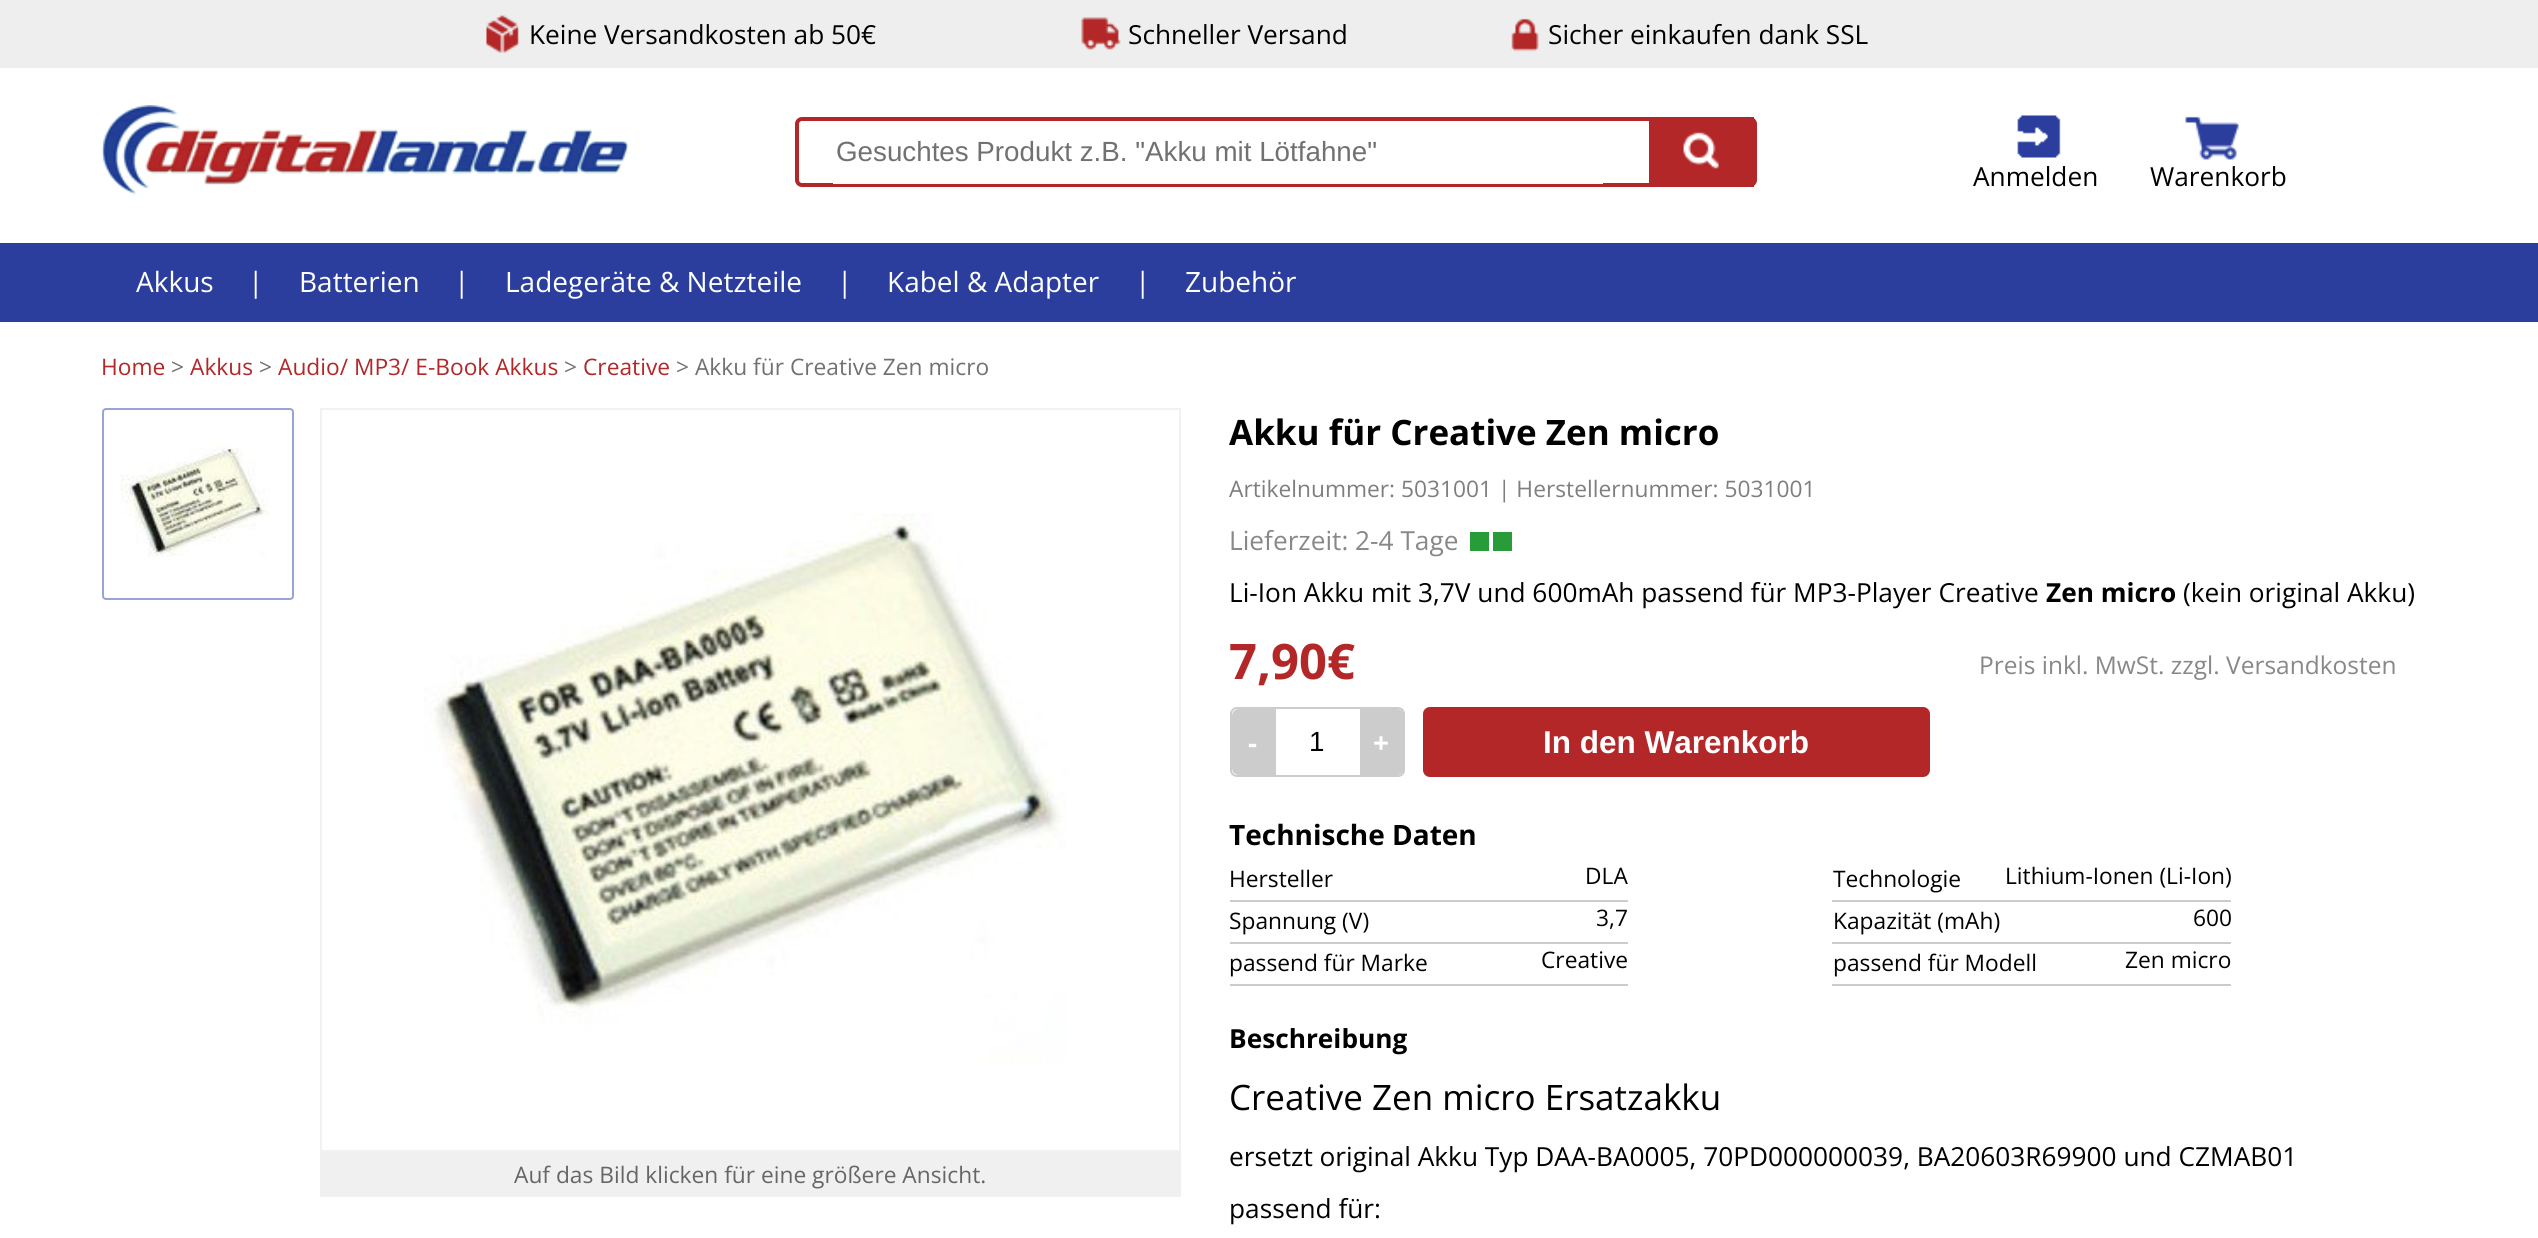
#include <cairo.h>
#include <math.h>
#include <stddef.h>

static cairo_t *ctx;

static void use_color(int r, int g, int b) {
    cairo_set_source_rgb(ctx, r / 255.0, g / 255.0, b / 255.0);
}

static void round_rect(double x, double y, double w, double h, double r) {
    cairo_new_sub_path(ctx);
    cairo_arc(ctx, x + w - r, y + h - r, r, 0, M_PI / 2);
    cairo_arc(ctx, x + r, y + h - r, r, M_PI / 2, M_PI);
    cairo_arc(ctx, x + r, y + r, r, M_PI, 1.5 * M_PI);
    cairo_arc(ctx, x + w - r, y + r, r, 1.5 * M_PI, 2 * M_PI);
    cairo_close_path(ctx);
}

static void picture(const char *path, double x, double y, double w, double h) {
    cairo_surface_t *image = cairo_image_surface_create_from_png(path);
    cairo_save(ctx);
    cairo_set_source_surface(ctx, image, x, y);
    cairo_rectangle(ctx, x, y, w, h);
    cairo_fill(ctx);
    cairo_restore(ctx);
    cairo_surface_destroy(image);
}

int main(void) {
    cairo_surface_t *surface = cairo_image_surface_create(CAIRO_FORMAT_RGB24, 2538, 1238);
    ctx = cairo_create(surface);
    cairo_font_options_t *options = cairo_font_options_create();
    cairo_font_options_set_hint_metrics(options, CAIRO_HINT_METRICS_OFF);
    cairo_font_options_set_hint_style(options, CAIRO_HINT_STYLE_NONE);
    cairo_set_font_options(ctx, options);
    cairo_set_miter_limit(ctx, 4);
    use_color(255, 255, 255);
    cairo_paint(ctx);
    use_color(238, 238, 238);
    cairo_rectangle(ctx, 0, 0, 2538, 68);
    cairo_fill(ctx);
    picture("img1.png", 486, 15, 33, 38);
    cairo_select_font_face(ctx, "Open Sans", CAIRO_FONT_SLANT_NORMAL, CAIRO_FONT_WEIGHT_NORMAL);
    cairo_set_font_size(ctx, 26.25);
    use_color(0, 0, 0);
    cairo_move_to(ctx, 529, 44);
    cairo_show_text(ctx, "Keine Versandkosten ab 50€");
    picture("img2.png", 1081, 17, 40, 33);
    cairo_move_to(ctx, 1128, 44);
    cairo_show_text(ctx, "Schneller Versand");
    picture("img3.png", 1511, 18, 28, 34);
    cairo_move_to(ctx, 1548, 44);
    cairo_show_text(ctx, "Sicher einkaufen dank SSL");
    picture("img4.png", 101, 105, 528, 90);
    round_rect(797, 119, 958, 66, 5);
    use_color(179, 39, 40);
    cairo_set_line_width(ctx, 4);
    cairo_stroke(ctx);
    use_color(255, 255, 255);
    cairo_rectangle(ctx, 833, 183, 770, 1);
    cairo_fill(ctx);
    cairo_select_font_face(ctx, "Liberation Sans", CAIRO_FONT_SLANT_NORMAL, CAIRO_FONT_WEIGHT_NORMAL);
    cairo_set_font_size(ctx, 27.75);
    use_color(113, 113, 113);
    cairo_move_to(ctx, 836, 161);
    cairo_show_text(ctx, "Gesuchtes Produkt z.B. \"Akku mit Lötfahne\"");
    use_color(179, 39, 40);
    cairo_rectangle(ctx, 1649, 117, 105, 70);
    cairo_fill(ctx);
    picture("img5.png", 1683, 132, 36, 37);
    picture("img6.png", 2017, 115, 44, 43);
    cairo_select_font_face(ctx, "Open Sans", CAIRO_FONT_SLANT_NORMAL, CAIRO_FONT_WEIGHT_NORMAL);
    cairo_set_font_size(ctx, 26.25);
    use_color(0, 0, 0);
    cairo_move_to(ctx, 1973, 186);
    cairo_show_text(ctx, "Anmelden");
    picture("img7.png", 2185, 116, 54, 44);
    cairo_move_to(ctx, 2150, 186);
    cairo_show_text(ctx, "Warenkorb");
    use_color(43, 62, 158);
    cairo_rectangle(ctx, 0, 243, 2538, 79);
    cairo_fill(ctx);
    cairo_set_font_size(ctx, 28);
    use_color(255, 255, 255);
    cairo_move_to(ctx, 136, 292);
    cairo_show_text(ctx, "Akkus");
    cairo_move_to(ctx, 248, 292);
    cairo_show_text(ctx, "|");
    cairo_move_to(ctx, 299, 292);
    cairo_show_text(ctx, "Batterien");
    cairo_move_to(ctx, 454, 292);
    cairo_show_text(ctx, "|");
    cairo_move_to(ctx, 505, 292);
    cairo_show_text(ctx, "Ladegeräte & Netzteile");
    cairo_move_to(ctx, 837, 292);
    cairo_show_text(ctx, "|");
    cairo_move_to(ctx, 887, 292);
    cairo_show_text(ctx, "Kabel & Adapter");
    cairo_move_to(ctx, 1135, 292);
    cairo_show_text(ctx, "|");
    cairo_move_to(ctx, 1185, 292);
    cairo_show_text(ctx, "Zubehör");
    cairo_set_font_size(ctx, 22.75);
    use_color(179, 39, 40);
    cairo_move_to(ctx, 101, 375);
    cairo_show_text(ctx, "Home");
    use_color(113, 113, 113);
    cairo_move_to(ctx, 171, 375);
    cairo_show_text(ctx, ">");
    use_color(179, 39, 40);
    cairo_move_to(ctx, 190, 375);
    cairo_show_text(ctx, "Akkus");
    use_color(113, 113, 113);
    cairo_move_to(ctx, 259, 375);
    cairo_show_text(ctx, ">");
    use_color(179, 39, 40);
    cairo_move_to(ctx, 278, 375);
    cairo_show_text(ctx, "Audio/ MP3/ E-Book Akkus");
    use_color(113, 113, 113);
    cairo_move_to(ctx, 564, 375);
    cairo_show_text(ctx, ">");
    use_color(179, 39, 40);
    cairo_move_to(ctx, 583, 375);
    cairo_show_text(ctx, "Creative");
    use_color(113, 113, 113);
    cairo_move_to(ctx, 676, 375);
    cairo_show_text(ctx, "> Akku für Creative Zen micro");
    round_rect(103, 409, 190, 190, 3);
    use_color(152, 163, 216);
    cairo_set_line_width(ctx, 2);
    cairo_stroke(ctx);
    picture("img8.png", 120, 442, 150, 115);
    cairo_rectangle(ctx, 321, 409, 859, 742);
    use_color(241, 241, 241);
    cairo_stroke(ctx);
    picture("img9.png", 424, 513, 643, 550);
    use_color(240, 240, 240);
    cairo_rectangle(ctx, 320, 1152, 861, 45);
    cairo_fill(ctx);
    use_color(102, 102, 102);
    cairo_move_to(ctx, 514, 1183);
    cairo_show_text(ctx, "Auf das Bild klicken für eine größere Ansicht.");
    cairo_select_font_face(ctx, "Open Sans", CAIRO_FONT_SLANT_NORMAL, CAIRO_FONT_WEIGHT_BOLD);
    cairo_set_font_size(ctx, 35);
    use_color(0, 0, 0);
    cairo_move_to(ctx, 1229, 445);
    cairo_show_text(ctx, "Akku für Creative Zen micro");
    cairo_select_font_face(ctx, "Open Sans", CAIRO_FONT_SLANT_NORMAL, CAIRO_FONT_WEIGHT_NORMAL);
    cairo_set_font_size(ctx, 22.75);
    use_color(126, 126, 126);
    cairo_move_to(ctx, 1229, 497);
    cairo_show_text(ctx, "Artikelnummer: 5031001 | Herstellernummer: 5031001");
    cairo_set_font_size(ctx, 26.25);
    use_color(136, 136, 136);
    cairo_move_to(ctx, 1229, 550);
    cairo_show_text(ctx, "Lieferzeit: 2-4 Tage");
    use_color(39, 156, 56);
    cairo_rectangle(ctx, 1470, 532, 19, 19);
    cairo_fill(ctx);
    cairo_rectangle(ctx, 1493, 532, 19, 19);
    cairo_fill(ctx);
    use_color(0, 0, 0);
    cairo_move_to(ctx, 1229, 602);
    cairo_show_text(ctx, "Li-Ion Akku mit 3,7V und 600mAh passend für MP3-Player Creative");
    cairo_select_font_face(ctx, "Open Sans", CAIRO_FONT_SLANT_NORMAL, CAIRO_FONT_WEIGHT_BOLD);
    cairo_move_to(ctx, 2046, 602);
    cairo_show_text(ctx, "Zen micro");
    cairo_select_font_face(ctx, "Open Sans", CAIRO_FONT_SLANT_NORMAL, CAIRO_FONT_WEIGHT_NORMAL);
    cairo_move_to(ctx, 2183, 602);
    cairo_show_text(ctx, "(kein original Akku)");
    cairo_select_font_face(ctx, "Open Sans", CAIRO_FONT_SLANT_NORMAL, CAIRO_FONT_WEIGHT_BOLD);
    cairo_set_font_size(ctx, 49);
    use_color(179, 39, 40);
    cairo_move_to(ctx, 1229, 679);
    cairo_show_text(ctx, "7,90€");
    cairo_select_font_face(ctx, "Open Sans", CAIRO_FONT_SLANT_NORMAL, CAIRO_FONT_WEIGHT_NORMAL);
    cairo_set_font_size(ctx, 24.5);
    use_color(136, 136, 136);
    cairo_move_to(ctx, 1979, 674);
    cairo_show_text(ctx, "Preis inkl. MwSt. zzgl. Versandkosten");
    round_rect(1231, 708, 173, 68, 6);
    use_color(204, 204, 204);
    cairo_stroke(ctx);
    cairo_new_path(ctx);
    cairo_move_to(ctx, 1239, 710);
    cairo_line_to(ctx, 1275, 710);
    cairo_line_to(ctx, 1275, 774);
    cairo_line_to(ctx, 1239, 774);
    cairo_curve_to(ctx, 1235.5, 774, 1233, 771.5, 1233, 768);
    cairo_line_to(ctx, 1233, 716);
    cairo_curve_to(ctx, 1233, 712.5, 1235.5, 710, 1239, 710);
    cairo_close_path(ctx);
    cairo_fill_preserve(ctx);
    cairo_stroke(ctx);
    cairo_select_font_face(ctx, "Open Sans", CAIRO_FONT_SLANT_NORMAL, CAIRO_FONT_WEIGHT_BOLD);
    cairo_set_font_size(ctx, 28);
    use_color(255, 255, 255);
    cairo_move_to(ctx, 1248, 753);
    cairo_show_text(ctx, "-");
    cairo_select_font_face(ctx, "Liberation Sans", CAIRO_FONT_SLANT_NORMAL, CAIRO_FONT_WEIGHT_NORMAL);
    cairo_set_font_size(ctx, 27.75);
    use_color(0, 0, 0);
    cairo_move_to(ctx, 1309, 751);
    cairo_show_text(ctx, "1");
    use_color(204, 204, 204);
    cairo_new_path(ctx);
    cairo_move_to(ctx, 1361, 710);
    cairo_line_to(ctx, 1397, 710);
    cairo_curve_to(ctx, 1400.5, 710, 1403, 712.5, 1403, 716);
    cairo_line_to(ctx, 1403, 768);
    cairo_curve_to(ctx, 1403, 771.5, 1400.5, 774, 1397, 774);
    cairo_line_to(ctx, 1361, 774);
    cairo_close_path(ctx);
    cairo_fill_preserve(ctx);
    cairo_stroke(ctx);
    cairo_select_font_face(ctx, "Open Sans", CAIRO_FONT_SLANT_NORMAL, CAIRO_FONT_WEIGHT_BOLD);
    cairo_set_font_size(ctx, 28);
    use_color(255, 255, 255);
    cairo_move_to(ctx, 1373, 753);
    cairo_show_text(ctx, "+");
    use_color(179, 39, 40);
    round_rect(1424, 708, 505, 68, 6);
    cairo_fill_preserve(ctx);
    cairo_stroke(ctx);
    cairo_select_font_face(ctx, "Liberation Sans", CAIRO_FONT_SLANT_NORMAL, CAIRO_FONT_WEIGHT_BOLD);
    cairo_set_font_size(ctx, 31.5);
    use_color(255, 255, 255);
    cairo_move_to(ctx, 1543, 753);
    cairo_show_text(ctx, "In den Warenkorb");
    cairo_select_font_face(ctx, "Open Sans", CAIRO_FONT_SLANT_NORMAL, CAIRO_FONT_WEIGHT_BOLD);
    cairo_set_font_size(ctx, 28);
    use_color(0, 0, 0);
    cairo_move_to(ctx, 1229, 845);
    cairo_show_text(ctx, "Technische Daten");
    use_color(204, 204, 204);
    cairo_rectangle(ctx, 1230, 900, 398, 2);
    cairo_fill(ctx);
    cairo_select_font_face(ctx, "Open Sans", CAIRO_FONT_SLANT_NORMAL, CAIRO_FONT_WEIGHT_NORMAL);
    cairo_set_font_size(ctx, 22.75);
    use_color(0, 0, 0);
    cairo_move_to(ctx, 1229, 887);
    cairo_show_text(ctx, "Hersteller");
    cairo_move_to(ctx, 1585, 884);
    cairo_show_text(ctx, "DLA");
    use_color(204, 204, 204);
    cairo_rectangle(ctx, 1832, 900, 399, 2);
    cairo_fill(ctx);
    use_color(0, 0, 0);
    cairo_move_to(ctx, 1833, 887);
    cairo_show_text(ctx, "Technologie");
    cairo_move_to(ctx, 2005, 884);
    cairo_show_text(ctx, "Lithium-Ionen (Li-Ion)");
    use_color(204, 204, 204);
    cairo_rectangle(ctx, 1230, 942, 398, 2);
    cairo_fill(ctx);
    use_color(0, 0, 0);
    cairo_move_to(ctx, 1229, 929);
    cairo_show_text(ctx, "Spannung (V)");
    cairo_move_to(ctx, 1596, 926);
    cairo_show_text(ctx, "3,7");
    use_color(204, 204, 204);
    cairo_rectangle(ctx, 1832, 942, 399, 2);
    cairo_fill(ctx);
    use_color(0, 0, 0);
    cairo_move_to(ctx, 1833, 929);
    cairo_show_text(ctx, "Kapazität (mAh)");
    cairo_move_to(ctx, 2193, 926);
    cairo_show_text(ctx, "600");
    use_color(204, 204, 204);
    cairo_rectangle(ctx, 1230, 984, 398, 2);
    cairo_fill(ctx);
    use_color(0, 0, 0);
    cairo_move_to(ctx, 1229, 971);
    cairo_show_text(ctx, "passend für Marke");
    cairo_move_to(ctx, 1541, 968);
    cairo_show_text(ctx, "Creative");
    use_color(204, 204, 204);
    cairo_rectangle(ctx, 1832, 984, 399, 2);
    cairo_fill(ctx);
    use_color(0, 0, 0);
    cairo_move_to(ctx, 1833, 971);
    cairo_show_text(ctx, "passend für Modell");
    cairo_move_to(ctx, 2125, 968);
    cairo_show_text(ctx, "Zen micro");
    cairo_select_font_face(ctx, "Open Sans", CAIRO_FONT_SLANT_NORMAL, CAIRO_FONT_WEIGHT_BOLD);
    cairo_set_font_size(ctx, 26.25);
    cairo_move_to(ctx, 1229, 1048);
    cairo_show_text(ctx, "Beschreibung");
    cairo_select_font_face(ctx, "Open Sans", CAIRO_FONT_SLANT_NORMAL, CAIRO_FONT_WEIGHT_NORMAL);
    cairo_set_font_size(ctx, 35);
    cairo_move_to(ctx, 1229, 1110);
    cairo_show_text(ctx, "Creative Zen micro Ersatzakku");
    cairo_set_font_size(ctx, 26.25);
    cairo_move_to(ctx, 1229, 1166);
    cairo_show_text(ctx, "ersetzt original Akku Typ DAA-BA0005, 70PD000000039, BA20603R69900 und CZMAB01");
    cairo_move_to(ctx, 1229, 1218);
    cairo_show_text(ctx, "passend für:");
    cairo_surface_write_to_png(surface, "result.png");
    cairo_font_options_destroy(options);
    cairo_destroy(ctx);
    cairo_surface_destroy(surface);
    return 0;
}
